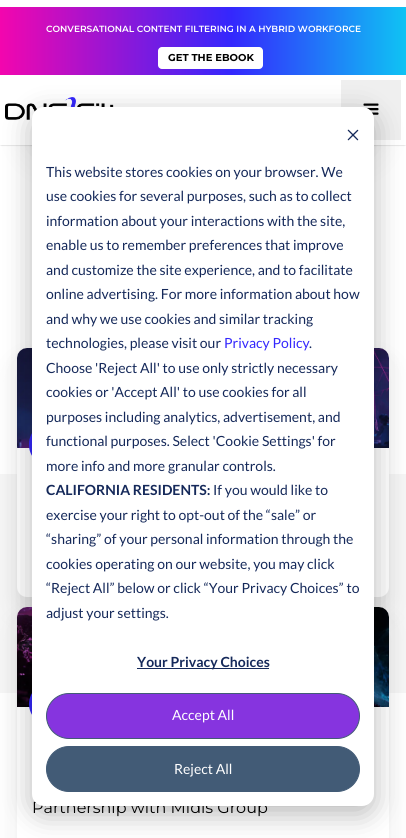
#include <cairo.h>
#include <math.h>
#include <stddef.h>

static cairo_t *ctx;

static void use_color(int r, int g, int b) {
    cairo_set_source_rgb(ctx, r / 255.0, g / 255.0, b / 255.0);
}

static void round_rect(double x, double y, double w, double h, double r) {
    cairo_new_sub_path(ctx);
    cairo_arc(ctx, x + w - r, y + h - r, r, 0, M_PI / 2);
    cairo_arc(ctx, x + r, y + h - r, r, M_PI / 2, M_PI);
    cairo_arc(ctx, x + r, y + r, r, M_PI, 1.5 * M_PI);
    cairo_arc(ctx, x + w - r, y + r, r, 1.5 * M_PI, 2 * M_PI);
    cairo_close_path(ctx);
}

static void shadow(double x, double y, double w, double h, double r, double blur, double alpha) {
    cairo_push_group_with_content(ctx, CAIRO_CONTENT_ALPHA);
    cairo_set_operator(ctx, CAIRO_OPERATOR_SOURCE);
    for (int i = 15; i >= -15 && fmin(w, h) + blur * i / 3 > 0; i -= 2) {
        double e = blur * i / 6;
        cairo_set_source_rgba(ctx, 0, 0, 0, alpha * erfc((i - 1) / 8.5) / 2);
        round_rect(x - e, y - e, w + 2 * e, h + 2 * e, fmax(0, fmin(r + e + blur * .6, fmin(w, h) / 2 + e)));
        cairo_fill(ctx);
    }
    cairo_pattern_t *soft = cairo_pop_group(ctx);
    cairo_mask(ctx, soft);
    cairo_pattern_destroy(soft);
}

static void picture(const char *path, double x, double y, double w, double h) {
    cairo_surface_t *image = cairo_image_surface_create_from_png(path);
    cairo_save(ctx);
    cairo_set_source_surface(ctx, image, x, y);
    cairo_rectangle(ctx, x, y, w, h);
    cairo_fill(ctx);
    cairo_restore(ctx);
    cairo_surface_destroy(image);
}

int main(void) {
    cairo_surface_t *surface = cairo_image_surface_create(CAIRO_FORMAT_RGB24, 406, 838);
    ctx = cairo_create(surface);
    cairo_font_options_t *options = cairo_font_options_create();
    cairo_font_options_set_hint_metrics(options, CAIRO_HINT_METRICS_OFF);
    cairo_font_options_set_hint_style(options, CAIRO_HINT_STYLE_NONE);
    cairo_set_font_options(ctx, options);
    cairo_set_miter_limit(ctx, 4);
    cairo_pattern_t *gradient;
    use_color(255, 255, 255);
    cairo_paint(ctx);
    use_color(33, 35, 34);
    shadow(24, -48, 358, 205, 24, 8, 0.05);
    shadow(24, -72, 358, 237, 24, 16, 0.05);
    use_color(0, 0, 0);
    shadow(1, 1, 404, 143, 0, 1, 1);
    use_color(255, 255, 255);
    cairo_rectangle(ctx, 0, 0, 406, 145);
    cairo_fill(ctx);
    gradient = cairo_pattern_create_linear(0, 41, 406, 41);
    cairo_pattern_add_color_stop_rgba(gradient, 0, 0.953, 0.024, 0.682, 1);
    cairo_pattern_add_color_stop_rgba(gradient, 0.57, 0.204, 0.153, 0.992, 1);
    cairo_pattern_add_color_stop_rgba(gradient, 1, 0.059, 0.765, 0.957, 1);
    cairo_set_source(ctx, gradient);
    cairo_pattern_destroy(gradient);
    cairo_rectangle(ctx, 0, 7, 406, 68);
    cairo_fill(ctx);
    cairo_select_font_face(ctx, "Montserrat SemiBold", CAIRO_FONT_SLANT_NORMAL, CAIRO_FONT_WEIGHT_NORMAL);
    cairo_set_font_size(ctx, 9);
    use_color(255, 255, 255);
    cairo_move_to(ctx, 46, 32);
    cairo_show_text(ctx, "CONVERSATIONAL CONTENT FILTERING IN A HYBRID WORKFORCE");
    round_rect(158, 47, 105, 22, 4);
    cairo_fill(ctx);
    cairo_select_font_face(ctx, "Montserrat", CAIRO_FONT_SLANT_NORMAL, CAIRO_FONT_WEIGHT_BOLD);
    cairo_set_font_size(ctx, 10);
    use_color(0, 0, 0);
    cairo_move_to(ctx, 168, 61);
    cairo_show_text(ctx, "GET THE EBOOK");
    picture("img1.png", 5, 97, 109, 23);
    use_color(239, 239, 239);
    cairo_rectangle(ctx, 341, 80, 60, 60);
    cairo_fill(ctx);
    picture("img2.png", 363, 103, 16, 12);
    use_color(246, 246, 246);
    cairo_rectangle(ctx, 0, 474, 406, 219);
    cairo_fill(ctx);
    use_color(33, 35, 34);
    shadow(17, 356, 372, 249, 10, 8, 0.05);
    shadow(17, 364, 372, 249, 10, 16, 0.05);
    use_color(255, 255, 255);
    round_rect(17, 348, 372, 249, 10);
    cairo_fill(ctx);
    picture("img3.png", 17, 348, 372, 100);
    use_color(52, 39, 253);
    round_rect(29, 423, 42, 43, 21);
    cairo_fill(ctx);
    use_color(33, 35, 34);
    shadow(17, 615, 372, 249, 10, 8, 0.05);
    shadow(17, 623, 372, 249, 10, 16, 0.05);
    use_color(255, 255, 255);
    round_rect(17, 607, 372, 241, 10);
    cairo_fill(ctx);
    picture("img4.png", 17, 607, 372, 100);
    use_color(52, 39, 253);
    cairo_arc(ctx, 50, 704, 21, 0, 2 * M_PI);
    cairo_fill(ctx);
    cairo_select_font_face(ctx, "Montserrat", CAIRO_FONT_SLANT_NORMAL, CAIRO_FONT_WEIGHT_NORMAL);
    cairo_set_font_size(ctx, 16);
    use_color(0, 0, 0);
    cairo_move_to(ctx, 32, 813);
    cairo_show_text(ctx, "Partnership with Midis Group");
    use_color(0, 0, 0);
    shadow(32, 115, 342, 699, 12, 14, 0.28);
    use_color(255, 255, 255);
    round_rect(32, 107, 342, 699, 12);
    cairo_fill(ctx);
    picture("img5.png", 347, 129, 12, 12);
    cairo_select_font_face(ctx, "Lato", CAIRO_FONT_SLANT_NORMAL, CAIRO_FONT_WEIGHT_NORMAL);
    cairo_set_font_size(ctx, 14);
    use_color(21, 41, 90);
    cairo_move_to(ctx, 46, 177);
    cairo_show_text(ctx, "This website stores cookies on your browser. We");
    cairo_move_to(ctx, 46, 201);
    cairo_show_text(ctx, "use cookies for several purposes, such as to collect");
    cairo_move_to(ctx, 46, 226);
    cairo_show_text(ctx, "information about your interactions with the site,");
    cairo_move_to(ctx, 46, 250);
    cairo_show_text(ctx, "enable us to remember preferences that improve");
    cairo_move_to(ctx, 46, 275);
    cairo_show_text(ctx, "and customize the site experience, and to facilitate");
    cairo_move_to(ctx, 46, 299);
    cairo_show_text(ctx, "online advertising. For more information about how");
    cairo_move_to(ctx, 46, 324);
    cairo_show_text(ctx, "and why we use cookies and similar tracking");
    cairo_move_to(ctx, 46, 348);
    cairo_show_text(ctx, "technologies, please visit our");
    use_color(52, 39, 253);
    cairo_move_to(ctx, 224, 348);
    cairo_show_text(ctx, "Privacy Policy");
    use_color(21, 41, 90);
    cairo_move_to(ctx, 309, 348);
    cairo_show_text(ctx, ".");
    cairo_move_to(ctx, 46, 373);
    cairo_show_text(ctx, "Choose 'Reject All' to use only strictly necessary");
    cairo_move_to(ctx, 46, 397);
    cairo_show_text(ctx, "cookies or 'Accept All' to use cookies for all");
    cairo_move_to(ctx, 46, 422);
    cairo_show_text(ctx, "purposes including analytics, advertisement, and");
    cairo_move_to(ctx, 46, 446);
    cairo_show_text(ctx, "functional purposes. Select 'Cookie Settings' for");
    cairo_move_to(ctx, 46, 471);
    cairo_show_text(ctx, "more info and more granular controls.");
    cairo_select_font_face(ctx, "Lato", CAIRO_FONT_SLANT_NORMAL, CAIRO_FONT_WEIGHT_BOLD);
    cairo_move_to(ctx, 46, 495);
    cairo_show_text(ctx, "CALIFORNIA RESIDENTS:");
    cairo_select_font_face(ctx, "Lato", CAIRO_FONT_SLANT_NORMAL, CAIRO_FONT_WEIGHT_NORMAL);
    cairo_move_to(ctx, 213, 495);
    cairo_show_text(ctx, "If you would like to");
    cairo_move_to(ctx, 46, 520);
    cairo_show_text(ctx, "exercise your right to opt-out of the “sale” or");
    cairo_move_to(ctx, 46, 544);
    cairo_show_text(ctx, "“sharing” of your personal information through the");
    cairo_move_to(ctx, 46, 569);
    cairo_show_text(ctx, "cookies operating on our website, you may click");
    cairo_move_to(ctx, 46, 593);
    cairo_show_text(ctx, "“Reject All” below or click “Your Privacy Choices” to");
    cairo_move_to(ctx, 46, 618);
    cairo_show_text(ctx, "adjust your settings.");
    cairo_rectangle(ctx, 137, 668, 132, 1);
    cairo_fill(ctx);
    cairo_select_font_face(ctx, "Lato", CAIRO_FONT_SLANT_NORMAL, CAIRO_FONT_WEIGHT_BOLD);
    cairo_move_to(ctx, 137, 667);
    cairo_show_text(ctx, "Your Privacy Choices");
    use_color(134, 52, 223);
    round_rect(46.5, 693.5, 313, 45, 22.5);
    cairo_fill_preserve(ctx);
    use_color(66, 91, 118);
    cairo_set_line_width(ctx, 1);
    cairo_stroke(ctx);
    cairo_select_font_face(ctx, "Lato", CAIRO_FONT_SLANT_NORMAL, CAIRO_FONT_WEIGHT_NORMAL);
    use_color(255, 255, 255);
    cairo_move_to(ctx, 172, 720);
    cairo_show_text(ctx, "Accept All");
    use_color(66, 91, 118);
    round_rect(46.5, 746.5, 313, 45, 22.5);
    cairo_fill_preserve(ctx);
    cairo_stroke(ctx);
    use_color(255, 255, 255);
    cairo_move_to(ctx, 174, 774);
    cairo_show_text(ctx, "Reject All");
    cairo_surface_write_to_png(surface, "result.png");
    cairo_font_options_destroy(options);
    cairo_destroy(ctx);
    cairo_surface_destroy(surface);
    return 0;
}
